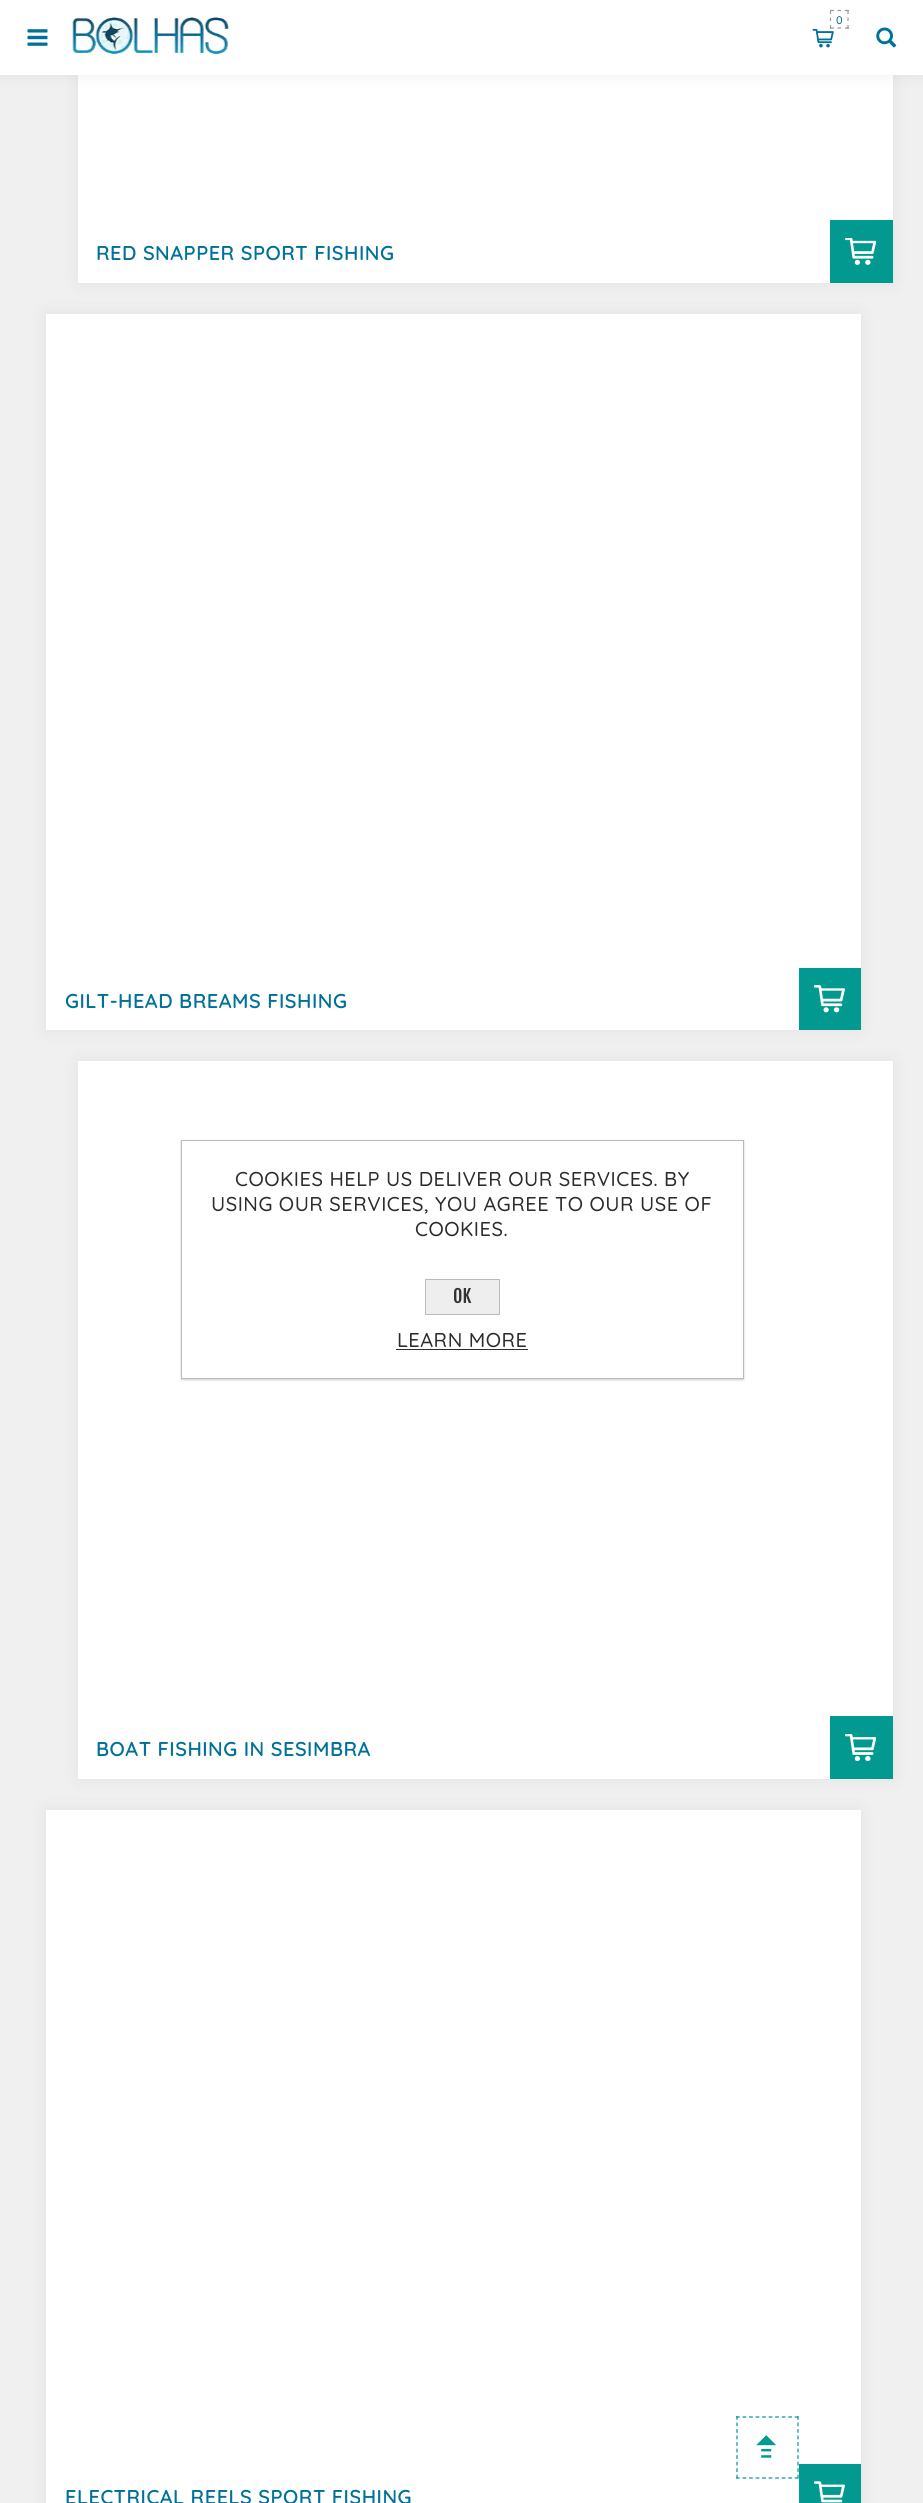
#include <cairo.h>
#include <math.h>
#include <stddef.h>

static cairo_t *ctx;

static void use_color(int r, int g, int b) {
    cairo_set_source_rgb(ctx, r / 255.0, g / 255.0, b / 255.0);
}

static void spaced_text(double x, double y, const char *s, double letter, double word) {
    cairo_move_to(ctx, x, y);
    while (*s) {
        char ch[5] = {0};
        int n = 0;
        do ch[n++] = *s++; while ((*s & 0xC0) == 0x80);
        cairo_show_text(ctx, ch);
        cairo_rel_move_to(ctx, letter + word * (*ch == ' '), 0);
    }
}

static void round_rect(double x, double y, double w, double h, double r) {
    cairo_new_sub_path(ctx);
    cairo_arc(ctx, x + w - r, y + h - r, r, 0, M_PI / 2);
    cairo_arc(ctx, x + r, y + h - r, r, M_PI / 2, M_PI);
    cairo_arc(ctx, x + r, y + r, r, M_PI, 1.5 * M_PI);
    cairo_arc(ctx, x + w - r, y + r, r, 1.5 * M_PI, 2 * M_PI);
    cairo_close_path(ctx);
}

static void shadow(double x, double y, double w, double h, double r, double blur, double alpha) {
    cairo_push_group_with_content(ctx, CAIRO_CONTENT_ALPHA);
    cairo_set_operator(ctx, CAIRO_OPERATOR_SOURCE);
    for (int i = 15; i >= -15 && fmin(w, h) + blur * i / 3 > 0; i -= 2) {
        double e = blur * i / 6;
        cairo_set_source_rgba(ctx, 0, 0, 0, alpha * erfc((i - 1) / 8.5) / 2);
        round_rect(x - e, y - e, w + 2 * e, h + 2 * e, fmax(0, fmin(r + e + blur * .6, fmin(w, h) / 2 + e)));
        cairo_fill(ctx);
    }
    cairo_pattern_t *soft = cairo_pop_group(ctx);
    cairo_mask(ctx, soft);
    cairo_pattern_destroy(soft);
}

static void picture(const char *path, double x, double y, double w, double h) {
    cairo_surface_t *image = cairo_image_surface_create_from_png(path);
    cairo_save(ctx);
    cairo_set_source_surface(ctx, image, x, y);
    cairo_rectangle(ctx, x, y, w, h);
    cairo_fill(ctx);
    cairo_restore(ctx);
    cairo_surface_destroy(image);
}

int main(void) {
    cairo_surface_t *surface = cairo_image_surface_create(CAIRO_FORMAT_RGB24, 923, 2503);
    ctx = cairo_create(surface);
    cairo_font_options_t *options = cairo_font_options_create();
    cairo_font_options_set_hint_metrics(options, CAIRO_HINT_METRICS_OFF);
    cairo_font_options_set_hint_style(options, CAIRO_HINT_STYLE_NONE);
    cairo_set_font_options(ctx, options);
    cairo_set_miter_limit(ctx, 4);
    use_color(240, 240, 240);
    cairo_paint(ctx);
    use_color(0, 0, 0);
    shadow(78, -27, 815, 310, 0, 9, 0.06);
    use_color(255, 255, 255);
    cairo_rectangle(ctx, 78, 75, 815, 208);
    cairo_fill(ctx);
    use_color(0, 0, 0);
    shadow(0, 0, 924, 75, 0, 9, 0.06);
    use_color(255, 255, 255);
    cairo_rectangle(ctx, 0, 0, 923, 75);
    cairo_fill(ctx);
    picture("img1.png", 72, 15, 157, 44);
    picture("img2.png", 812, 28, 22, 20);
    cairo_new_path(ctx);
    cairo_move_to(ctx, 830, 10.5);
    cairo_line_to(ctx, 834, 10.5);
    cairo_move_to(ctx, 837.5, 10.5);
    cairo_line_to(ctx, 841, 10.5);
    cairo_move_to(ctx, 845, 10.5);
    cairo_line_to(ctx, 849, 10.5);
    cairo_move_to(ctx, 848, 10);
    cairo_line_to(ctx, 848, 14);
    cairo_move_to(ctx, 848, 17.5);
    cairo_line_to(ctx, 848, 21);
    cairo_move_to(ctx, 848, 25);
    cairo_line_to(ctx, 848, 29);
    cairo_move_to(ctx, 830, 28);
    cairo_line_to(ctx, 834, 28);
    cairo_move_to(ctx, 837.5, 28);
    cairo_line_to(ctx, 841, 28);
    cairo_move_to(ctx, 845, 28);
    cairo_line_to(ctx, 849, 28);
    cairo_move_to(ctx, 830.5, 10);
    cairo_line_to(ctx, 830.5, 14);
    cairo_move_to(ctx, 830.5, 17.5);
    cairo_line_to(ctx, 830.5, 21);
    cairo_move_to(ctx, 830.5, 25);
    cairo_line_to(ctx, 830.5, 29);
    use_color(153, 153, 153);
    cairo_set_line_width(ctx, 1.2);
    cairo_stroke(ctx);
    cairo_select_font_face(ctx, "Quicksand Medium", CAIRO_FONT_SLANT_NORMAL, CAIRO_FONT_WEIGHT_NORMAL);
    cairo_set_font_size(ctx, 11);
    use_color(1, 113, 154);
    spaced_text(836, 24, "0", 0.5, 0);
    picture("img3.png", 27, 29, 21, 17);
    picture("img4.png", 876, 27, 21, 21);
    cairo_select_font_face(ctx, "Quicksand SemiBold", CAIRO_FONT_SLANT_NORMAL, CAIRO_FONT_WEIGHT_NORMAL);
    cairo_set_font_size(ctx, 20);
    spaced_text(96, 260, "RED SNAPPER SPORT FISHING", 0.5, 0);
    use_color(2, 153, 145);
    cairo_rectangle(ctx, 830, 220, 63, 63);
    cairo_fill(ctx);
    picture("img5.png", 845, 238, 31, 27);
    use_color(0, 0, 0);
    shadow(46, 314, 815, 716, 0, 9, 0.06);
    use_color(255, 255, 255);
    cairo_rectangle(ctx, 46, 314, 815, 716);
    cairo_fill(ctx);
    use_color(1, 113, 154);
    spaced_text(65, 1008, "GILT-HEAD BREAMS FISHING", 0.5, 0);
    use_color(2, 153, 145);
    cairo_rectangle(ctx, 799, 968, 62, 62);
    cairo_fill(ctx);
    picture("img6.png", 814, 985, 31, 28);
    use_color(0, 0, 0);
    shadow(78, 1061, 815, 718, 0, 9, 0.06);
    use_color(255, 255, 255);
    cairo_rectangle(ctx, 78, 1061, 815, 718);
    cairo_fill(ctx);
    use_color(1, 113, 154);
    spaced_text(96, 1756, "BOAT FISHING IN SESIMBRA", 0.5, 0);
    use_color(2, 153, 145);
    cairo_rectangle(ctx, 830, 1716, 63, 63);
    cairo_fill(ctx);
    picture("img7.png", 845, 1734, 31, 27);
    use_color(0, 0, 0);
    shadow(46, 1810, 815, 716, 0, 9, 0.06);
    use_color(255, 255, 255);
    cairo_rectangle(ctx, 46, 1810, 815, 693);
    cairo_fill(ctx);
    use_color(1, 113, 154);
    spaced_text(65, 2504, "ELECTRICAL REELS SPORT FISHING", 0.5, 0);
    use_color(2, 153, 145);
    cairo_rectangle(ctx, 799, 2464, 62, 39);
    cairo_fill(ctx);
    picture("img8.png", 814, 2481, 31, 22);
    use_color(0, 0, 0);
    shadow(181, 1141, 563, 239, 0, 1, 0.2);
    use_color(255, 255, 255);
    cairo_rectangle(ctx, 181.5, 1140.5, 562, 238);
    cairo_fill_preserve(ctx);
    use_color(187, 187, 187);
    cairo_set_line_width(ctx, 1);
    cairo_stroke(ctx);
    cairo_select_font_face(ctx, "Quicksand Medium", CAIRO_FONT_SLANT_NORMAL, CAIRO_FONT_WEIGHT_NORMAL);
    use_color(44, 44, 44);
    spaced_text(235, 1186, "COOKIES HELP US DELIVER OUR SERVICES. BY", 0.5, 0);
    spaced_text(211, 1211, "USING OUR SERVICES, YOU AGREE TO OUR USE OF", 0.5, 0);
    spaced_text(415, 1236, "COOKIES.", 0.5, 0);
    use_color(238, 238, 238);
    cairo_rectangle(ctx, 425.5, 1279.5, 74, 35);
    cairo_fill_preserve(ctx);
    use_color(187, 187, 187);
    cairo_stroke(ctx);
    cairo_select_font_face(ctx, "Fjalla One", CAIRO_FONT_SLANT_NORMAL, CAIRO_FONT_WEIGHT_NORMAL);
    cairo_set_font_size(ctx, 18);
    use_color(51, 51, 51);
    cairo_move_to(ctx, 453, 1303);
    cairo_show_text(ctx, "OK");
    cairo_select_font_face(ctx, "Quicksand Medium", CAIRO_FONT_SLANT_NORMAL, CAIRO_FONT_WEIGHT_NORMAL);
    cairo_set_font_size(ctx, 20);
    use_color(44, 44, 44);
    spaced_text(397, 1347, "LEARN MORE", 0.5, 0);
    cairo_rectangle(ctx, 396, 1349, 132, 1);
    cairo_fill(ctx);
    cairo_new_path(ctx);
    cairo_move_to(ctx, 736, 2417);
    cairo_line_to(ctx, 799, 2417);
    cairo_move_to(ctx, 798, 2416);
    cairo_line_to(ctx, 798, 2479);
    cairo_move_to(ctx, 736, 2478);
    cairo_line_to(ctx, 799, 2478);
    cairo_move_to(ctx, 737, 2416);
    cairo_line_to(ctx, 737, 2479);
    use_color(2, 153, 145);
    cairo_set_line_width(ctx, 1.2);
    cairo_set_dash(ctx, (double[]){3.75, 2.78}, 2, 0);
    cairo_stroke(ctx);
    picture("img9.png", 756, 2435, 20, 23);
    cairo_surface_write_to_png(surface, "result.png");
    cairo_font_options_destroy(options);
    cairo_destroy(ctx);
    cairo_surface_destroy(surface);
    return 0;
}
